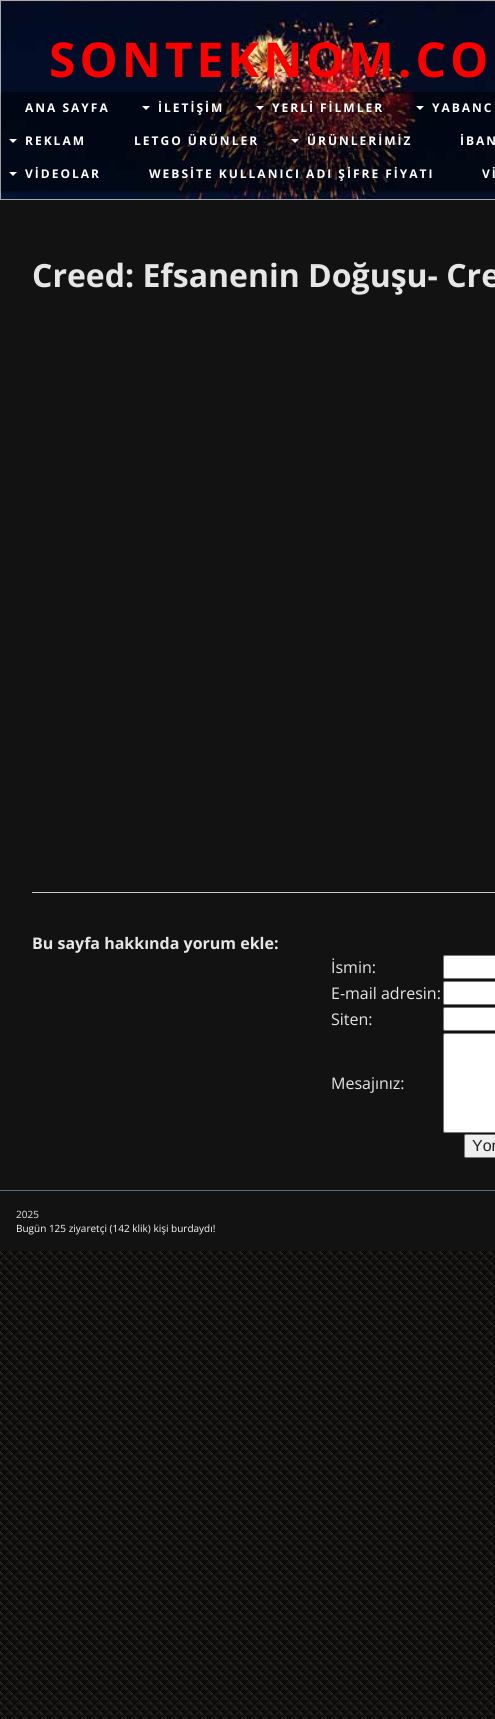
#include <cairo.h>
#include <math.h>
#include <stddef.h>

static cairo_t *ctx;

static void use_color(int r, int g, int b) {
    cairo_set_source_rgb(ctx, r / 255.0, g / 255.0, b / 255.0);
}

static void spaced_text(double x, double y, const char *s, double letter, double word) {
    cairo_move_to(ctx, x, y);
    while (*s) {
        char ch[5] = {0};
        int n = 0;
        do ch[n++] = *s++; while ((*s & 0xC0) == 0x80);
        cairo_show_text(ctx, ch);
        cairo_rel_move_to(ctx, letter + word * (*ch == ' '), 0);
    }
}

static void round_rect(double x, double y, double w, double h, double r) {
    cairo_new_sub_path(ctx);
    cairo_arc(ctx, x + w - r, y + h - r, r, 0, M_PI / 2);
    cairo_arc(ctx, x + r, y + h - r, r, M_PI / 2, M_PI);
    cairo_arc(ctx, x + r, y + r, r, M_PI, 1.5 * M_PI);
    cairo_arc(ctx, x + w - r, y + r, r, 1.5 * M_PI, 2 * M_PI);
    cairo_close_path(ctx);
}

static void shadow(double x, double y, double w, double h, double r, double blur, double alpha) {
    cairo_push_group_with_content(ctx, CAIRO_CONTENT_ALPHA);
    cairo_set_operator(ctx, CAIRO_OPERATOR_SOURCE);
    for (int i = 15; i >= -15 && fmin(w, h) + blur * i / 3 > 0; i -= 2) {
        double e = blur * i / 6;
        cairo_set_source_rgba(ctx, 0, 0, 0, alpha * erfc((i - 1) / 8.5) / 2);
        round_rect(x - e, y - e, w + 2 * e, h + 2 * e, fmax(0, fmin(r + e + blur * .6, fmin(w, h) / 2 + e)));
        cairo_fill(ctx);
    }
    cairo_pattern_t *soft = cairo_pop_group(ctx);
    cairo_mask(ctx, soft);
    cairo_pattern_destroy(soft);
}

static void picture(const char *path, double x, double y, double w, double h) {
    cairo_surface_t *image = cairo_image_surface_create_from_png(path);
    cairo_save(ctx);
    cairo_set_source_surface(ctx, image, x, y);
    cairo_rectangle(ctx, x, y, w, h);
    cairo_fill(ctx);
    cairo_restore(ctx);
    cairo_surface_destroy(image);
}

int main(void) {
    cairo_surface_t *surface = cairo_image_surface_create(CAIRO_FORMAT_RGB24, 495, 1719);
    ctx = cairo_create(surface);
    cairo_font_options_t *options = cairo_font_options_create();
    cairo_font_options_set_hint_metrics(options, CAIRO_HINT_METRICS_OFF);
    cairo_font_options_set_hint_style(options, CAIRO_HINT_STYLE_NONE);
    cairo_set_font_options(ctx, options);
    cairo_set_miter_limit(ctx, 4);
    use_color(255, 255, 255);
    cairo_paint(ctx);
    picture("img1.png", 0, 1251, 495, 468);
    use_color(18, 18, 18);
    cairo_rectangle(ctx, 0, 200, 495, 1051);
    cairo_fill(ctx);
    picture("img2.png", 1, 1, 494, 198);
    cairo_rectangle(ctx, 0.5, 0.5, 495, 199);
    use_color(170, 170, 170);
    cairo_set_line_width(ctx, 1);
    cairo_stroke(ctx);
    cairo_select_font_face(ctx, "Open Sans", CAIRO_FONT_SLANT_NORMAL, CAIRO_FONT_WEIGHT_BOLD);
    cairo_set_font_size(ctx, 48);
    use_color(252, 0, 0);
    spaced_text(49, 77, "SONTEKNOM.CO", 4, 0);
    cairo_save(ctx);
    cairo_set_fill_rule(ctx, CAIRO_FILL_RULE_EVEN_ODD);
    cairo_new_path(ctx);
    cairo_move_to(ctx, 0, 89);
    cairo_line_to(ctx, 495, 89);
    cairo_line_to(ctx, 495, 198);
    cairo_line_to(ctx, 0, 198);
    cairo_close_path(ctx);
    cairo_move_to(ctx, 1, 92);
    cairo_line_to(ctx, 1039, 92);
    cairo_line_to(ctx, 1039, 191);
    cairo_line_to(ctx, 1, 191);
    cairo_close_path(ctx);
    cairo_clip(ctx);
    use_color(0, 0, 0);
    shadow(2, 95, 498, 97, 0, 1.5, 0.51);
    cairo_restore(ctx);
    cairo_set_source_rgba(ctx, 0, 0, 0, 0.5);
    cairo_rectangle(ctx, 1, 92, 494, 99);
    cairo_fill(ctx);
    cairo_set_font_size(ctx, 12);
    use_color(255, 255, 255);
    spaced_text(25, 112, "ANA SAYFA", 2, 0);
    cairo_new_path(ctx);
    cairo_move_to(ctx, 142, 106);
    cairo_line_to(ctx, 150, 106);
    cairo_line_to(ctx, 146, 110);
    cairo_close_path(ctx);
    cairo_fill(ctx);
    spaced_text(158, 112, "İLETİŞİM", 2, 0);
    cairo_new_path(ctx);
    cairo_move_to(ctx, 256, 106);
    cairo_line_to(ctx, 264, 106);
    cairo_line_to(ctx, 260, 110);
    cairo_close_path(ctx);
    cairo_fill(ctx);
    spaced_text(272, 112, "YERLİ FİLMLER", 2, 0);
    cairo_new_path(ctx);
    cairo_move_to(ctx, 416, 106);
    cairo_line_to(ctx, 424, 106);
    cairo_line_to(ctx, 420, 110);
    cairo_close_path(ctx);
    cairo_fill(ctx);
    spaced_text(432, 112, "YABANC", 2, 0);
    cairo_new_path(ctx);
    cairo_move_to(ctx, 9, 139);
    cairo_line_to(ctx, 17, 139);
    cairo_line_to(ctx, 13, 143);
    cairo_close_path(ctx);
    cairo_fill(ctx);
    spaced_text(25, 145, "REKLAM", 2, 0);
    spaced_text(134, 145, "LETGO ÜRÜNLER", 2, 0);
    cairo_new_path(ctx);
    cairo_move_to(ctx, 291, 139);
    cairo_line_to(ctx, 299, 139);
    cairo_line_to(ctx, 295, 143);
    cairo_close_path(ctx);
    cairo_fill(ctx);
    spaced_text(307, 145, "ÜRÜNLERİMİZ", 2, 0);
    spaced_text(460, 145, "İBAN", 2, 0);
    cairo_new_path(ctx);
    cairo_move_to(ctx, 9, 172);
    cairo_line_to(ctx, 17, 172);
    cairo_line_to(ctx, 13, 176);
    cairo_close_path(ctx);
    cairo_fill(ctx);
    spaced_text(25, 178, "VİDEOLAR", 2, 0);
    spaced_text(149, 178, "WEBSİTE KULLANICI ADI ŞİFRE FİYATI", 2, 0);
    spaced_text(482, 178, "Vİ", 2, 0);
    cairo_set_font_size(ctx, 32);
    use_color(230, 230, 230);
    cairo_move_to(ctx, 32, 287);
    cairo_show_text(ctx, "Creed: Efsanenin Doğuşu- Cre");
    use_color(204, 204, 204);
    cairo_rectangle(ctx, 32, 892, 463, 1);
    cairo_fill(ctx);
    cairo_set_font_size(ctx, 16);
    use_color(230, 230, 230);
    cairo_move_to(ctx, 32, 949);
    cairo_show_text(ctx, "Bu sayfa hakkında yorum ekle:");
    cairo_select_font_face(ctx, "Open Sans", CAIRO_FONT_SLANT_NORMAL, CAIRO_FONT_WEIGHT_NORMAL);
    cairo_move_to(ctx, 331, 973);
    cairo_show_text(ctx, "İsmin:");
    use_color(255, 255, 255);
    round_rect(443.5, 955.5, 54, 23, 1.5);
    cairo_fill_preserve(ctx);
    use_color(118, 118, 118);
    cairo_stroke(ctx);
    use_color(230, 230, 230);
    cairo_move_to(ctx, 331, 999);
    cairo_show_text(ctx, "E-mail adresin:");
    use_color(255, 255, 255);
    round_rect(443.5, 981.5, 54, 23, 1.5);
    cairo_fill_preserve(ctx);
    use_color(118, 118, 118);
    cairo_stroke(ctx);
    use_color(230, 230, 230);
    cairo_move_to(ctx, 331, 1025);
    cairo_show_text(ctx, "Siten:");
    use_color(255, 255, 255);
    round_rect(443.5, 1007.5, 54, 23, 1.5);
    cairo_fill_preserve(ctx);
    use_color(118, 118, 118);
    cairo_stroke(ctx);
    use_color(230, 230, 230);
    cairo_move_to(ctx, 331, 1089);
    cairo_show_text(ctx, "Mesajınız:");
    use_color(255, 255, 255);
    round_rect(443.5, 1033.5, 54, 99, 1.5);
    cairo_fill_preserve(ctx);
    use_color(118, 118, 118);
    cairo_stroke(ctx);
    use_color(239, 239, 239);
    round_rect(464.5, 1134.5, 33, 23, 1.5);
    cairo_fill_preserve(ctx);
    use_color(118, 118, 118);
    cairo_stroke(ctx);
    cairo_select_font_face(ctx, "Liberation Sans", CAIRO_FONT_SLANT_NORMAL, CAIRO_FONT_WEIGHT_NORMAL);
    use_color(34, 34, 34);
    cairo_move_to(ctx, 472, 1151);
    cairo_show_text(ctx, "Yor");
    use_color(75, 112, 130);
    cairo_rectangle(ctx, 0, 1190, 495, 1);
    cairo_fill(ctx);
    cairo_select_font_face(ctx, "Open Sans", CAIRO_FONT_SLANT_NORMAL, CAIRO_FONT_WEIGHT_NORMAL);
    cairo_set_font_size(ctx, 10);
    use_color(230, 230, 230);
    cairo_move_to(ctx, 16, 1218);
    cairo_show_text(ctx, "2025");
    use_color(247, 252, 247);
    cairo_move_to(ctx, 16, 1232);
    cairo_show_text(ctx, "Bugün 125 ziyaretçi (142 klik) kişi burdaydı!");
    cairo_surface_write_to_png(surface, "result.png");
    cairo_font_options_destroy(options);
    cairo_destroy(ctx);
    cairo_surface_destroy(surface);
    return 0;
}
